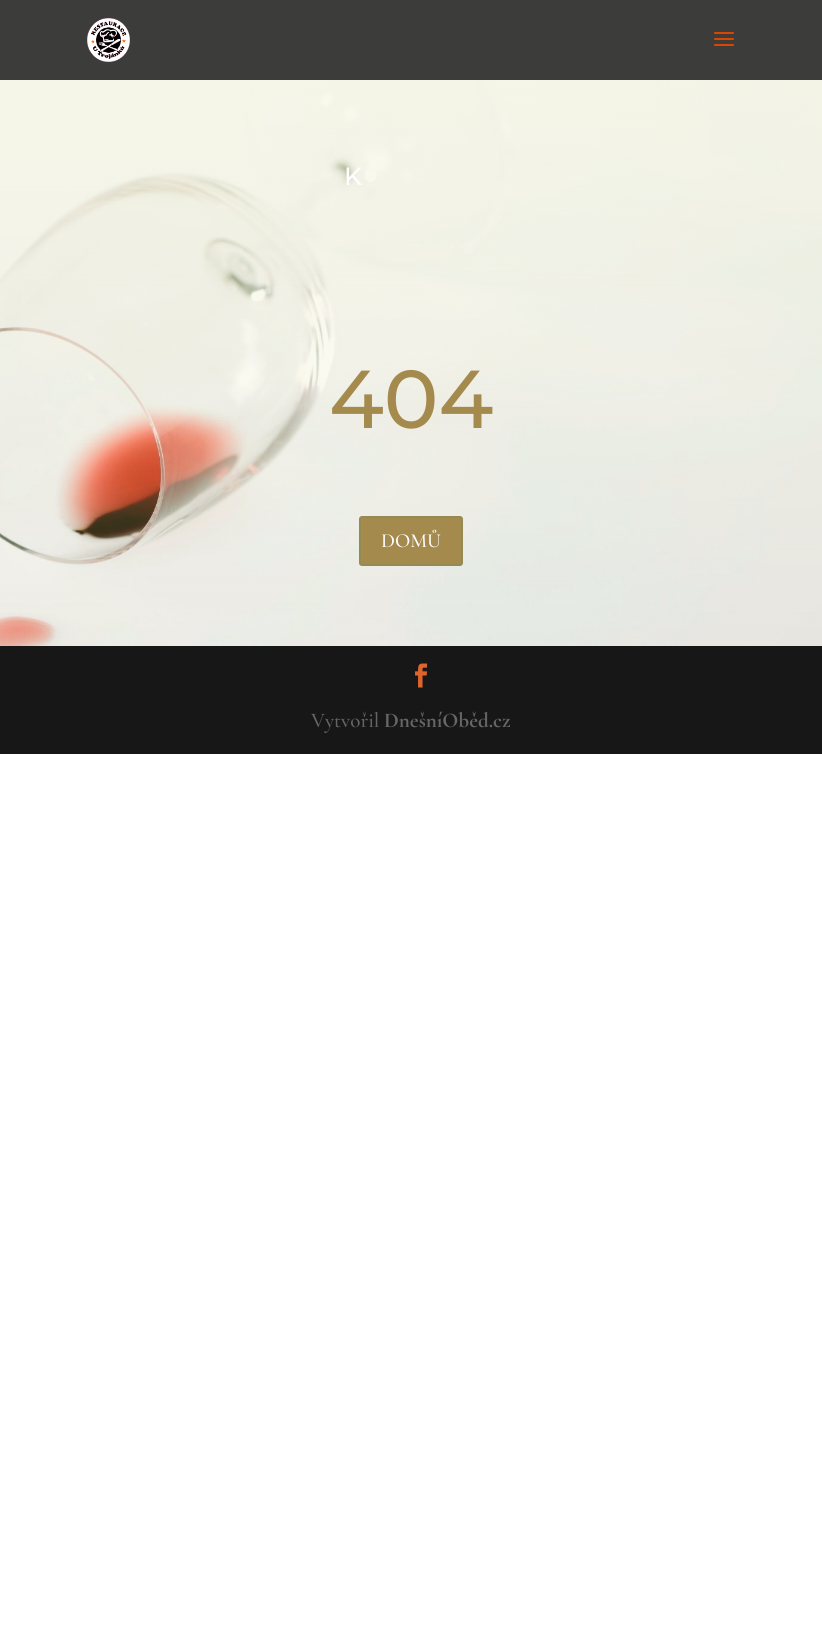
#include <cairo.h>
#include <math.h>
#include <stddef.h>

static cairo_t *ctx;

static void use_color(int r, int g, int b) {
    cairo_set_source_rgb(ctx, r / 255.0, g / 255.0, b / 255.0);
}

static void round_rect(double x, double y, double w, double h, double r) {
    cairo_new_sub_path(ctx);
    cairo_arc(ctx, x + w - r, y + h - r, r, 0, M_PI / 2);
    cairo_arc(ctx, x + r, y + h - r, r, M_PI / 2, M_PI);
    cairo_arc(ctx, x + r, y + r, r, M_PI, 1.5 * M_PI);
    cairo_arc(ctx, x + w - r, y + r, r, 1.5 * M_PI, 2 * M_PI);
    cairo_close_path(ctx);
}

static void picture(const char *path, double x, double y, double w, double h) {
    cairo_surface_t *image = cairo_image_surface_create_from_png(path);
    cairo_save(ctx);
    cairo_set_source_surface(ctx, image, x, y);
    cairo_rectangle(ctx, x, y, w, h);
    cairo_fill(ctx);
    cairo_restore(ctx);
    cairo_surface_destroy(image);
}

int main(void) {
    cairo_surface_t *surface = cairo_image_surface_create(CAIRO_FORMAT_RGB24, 822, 1648);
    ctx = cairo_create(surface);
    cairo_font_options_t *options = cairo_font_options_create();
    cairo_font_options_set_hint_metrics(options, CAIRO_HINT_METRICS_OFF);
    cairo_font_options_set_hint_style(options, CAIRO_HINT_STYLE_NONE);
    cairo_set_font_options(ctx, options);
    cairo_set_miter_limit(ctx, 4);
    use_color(255, 255, 255);
    cairo_paint(ctx);
    picture("img3.png", 0, 0, 822, 646);
    cairo_set_source_rgba(ctx, 0.188, 0.188, 0.188, 0.93);
    cairo_rectangle(ctx, 0, 0, 822, 80);
    cairo_fill(ctx);
    picture("img1.png", 87, 18, 43, 44);
    picture("img2.png", 714, 32, 20, 14);
    cairo_select_font_face(ctx, "Montserrat Medium", CAIRO_FONT_SLANT_NORMAL, CAIRO_FONT_WEIGHT_NORMAL);
    cairo_set_font_size(ctx, 25);
    use_color(255, 255, 255);
    cairo_move_to(ctx, 344, 185);
    cairo_show_text(ctx, "K");
    cairo_set_font_size(ctx, 82);
    use_color(165, 138, 78);
    cairo_move_to(ctx, 329, 428);
    cairo_show_text(ctx, "404");
    round_rect(360, 517, 102, 48, 2);
    cairo_fill_preserve(ctx);
    use_color(148, 139, 84);
    cairo_stroke(ctx);
    cairo_select_font_face(ctx, "Cormorant Garamond Medium", CAIRO_FONT_SLANT_NORMAL, CAIRO_FONT_WEIGHT_NORMAL);
    cairo_set_font_size(ctx, 20);
    use_color(255, 255, 255);
    cairo_move_to(ctx, 381, 547);
    cairo_show_text(ctx, "DOMŮ");
    use_color(23, 23, 23);
    cairo_rectangle(ctx, 0, 646, 822, 108);
    cairo_fill(ctx);
    picture("img4.png", 415, 663, 13, 25);
    cairo_set_font_size(ctx, 21);
    use_color(102, 102, 102);
    cairo_move_to(ctx, 311, 727);
    cairo_show_text(ctx, "Vytvořil");
    cairo_select_font_face(ctx, "Cormorant Garamond", CAIRO_FONT_SLANT_NORMAL, CAIRO_FONT_WEIGHT_BOLD);
    cairo_move_to(ctx, 384, 727);
    cairo_show_text(ctx, "DnešníOběd.cz");
    cairo_surface_write_to_png(surface, "result.png");
    cairo_font_options_destroy(options);
    cairo_destroy(ctx);
    cairo_surface_destroy(surface);
    return 0;
}
